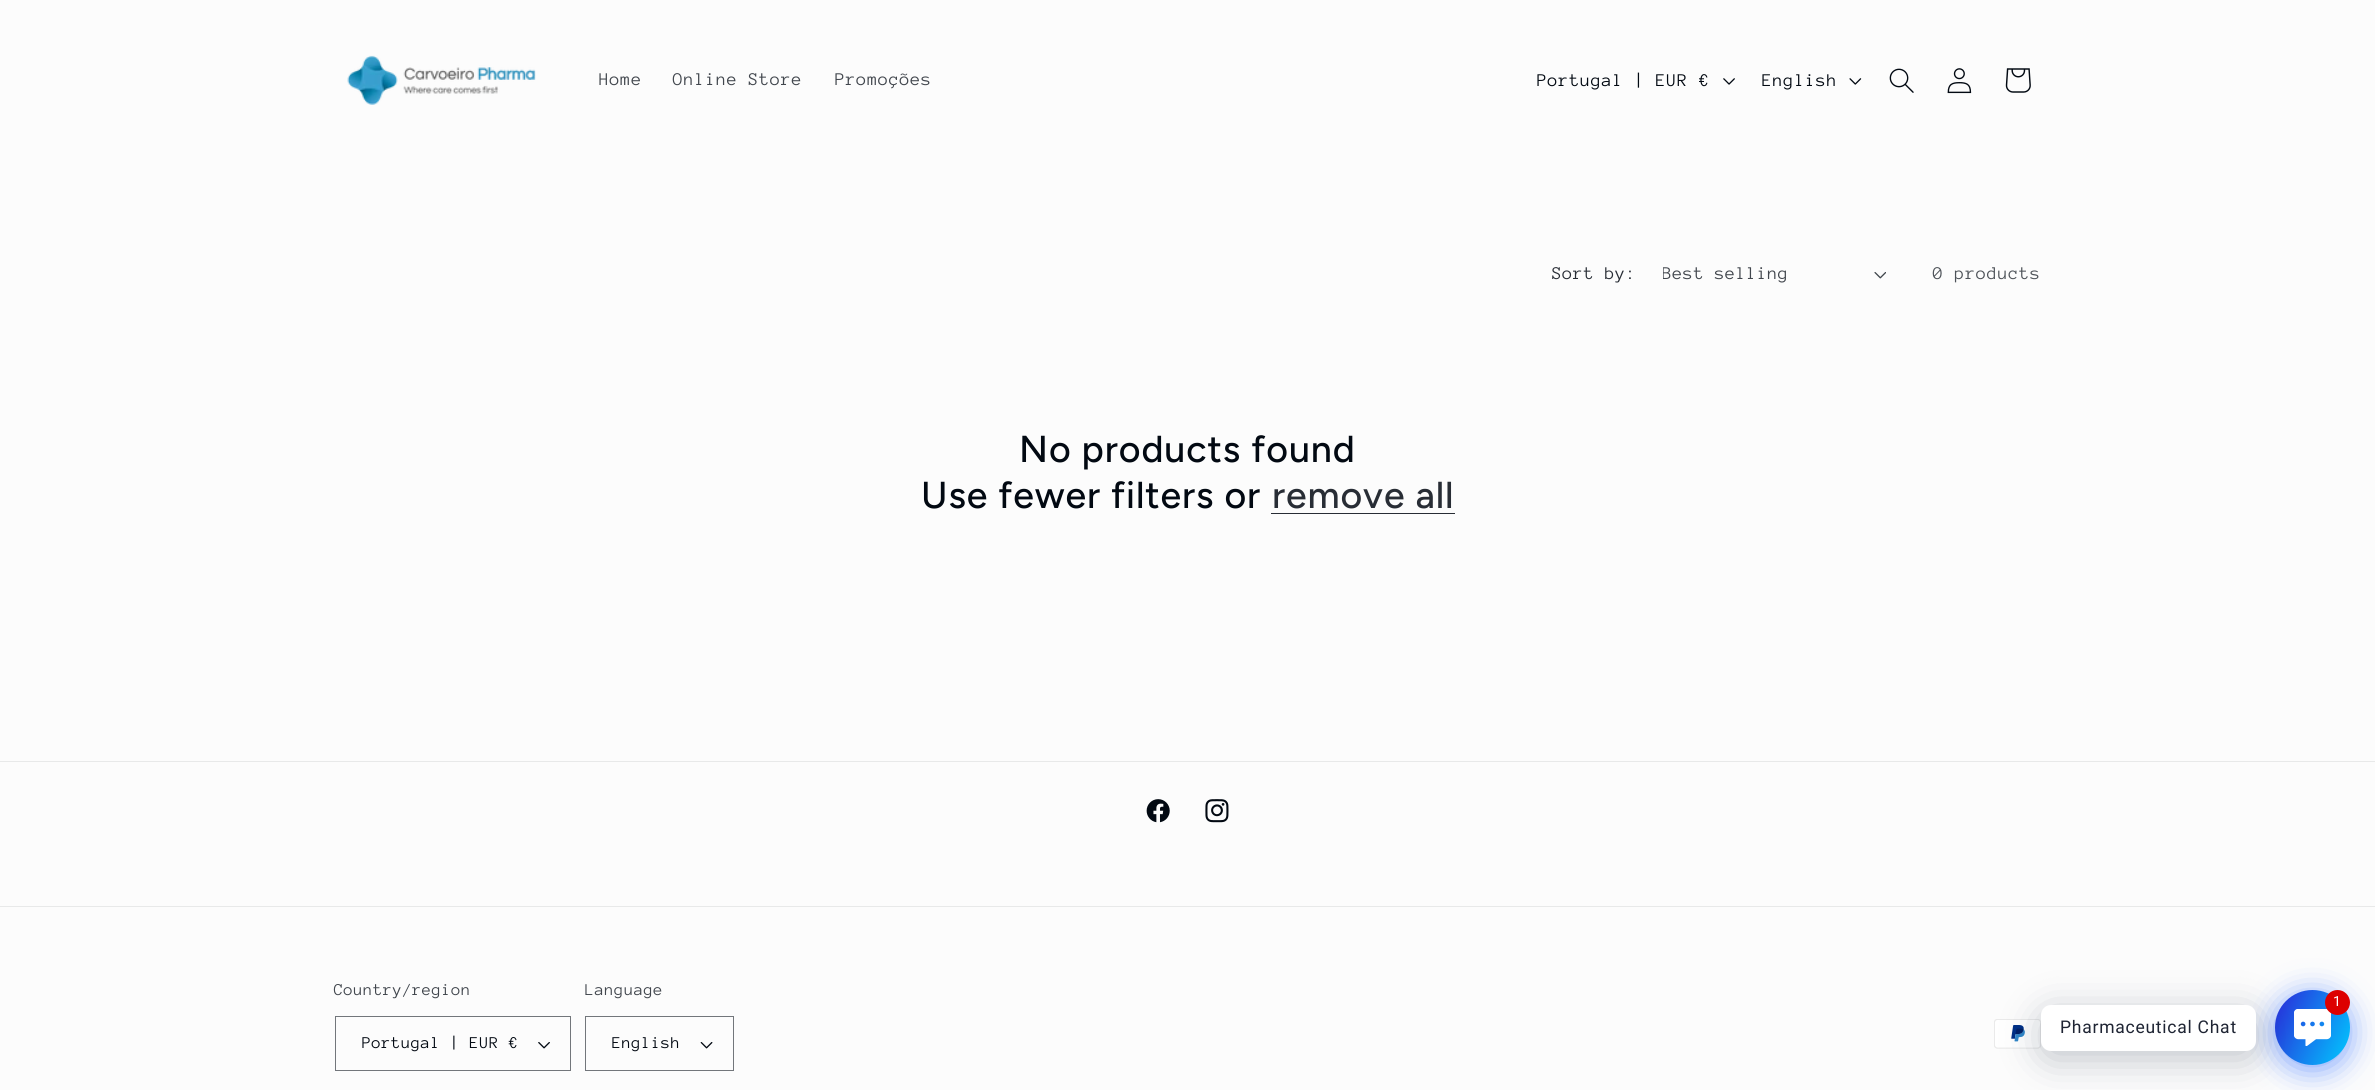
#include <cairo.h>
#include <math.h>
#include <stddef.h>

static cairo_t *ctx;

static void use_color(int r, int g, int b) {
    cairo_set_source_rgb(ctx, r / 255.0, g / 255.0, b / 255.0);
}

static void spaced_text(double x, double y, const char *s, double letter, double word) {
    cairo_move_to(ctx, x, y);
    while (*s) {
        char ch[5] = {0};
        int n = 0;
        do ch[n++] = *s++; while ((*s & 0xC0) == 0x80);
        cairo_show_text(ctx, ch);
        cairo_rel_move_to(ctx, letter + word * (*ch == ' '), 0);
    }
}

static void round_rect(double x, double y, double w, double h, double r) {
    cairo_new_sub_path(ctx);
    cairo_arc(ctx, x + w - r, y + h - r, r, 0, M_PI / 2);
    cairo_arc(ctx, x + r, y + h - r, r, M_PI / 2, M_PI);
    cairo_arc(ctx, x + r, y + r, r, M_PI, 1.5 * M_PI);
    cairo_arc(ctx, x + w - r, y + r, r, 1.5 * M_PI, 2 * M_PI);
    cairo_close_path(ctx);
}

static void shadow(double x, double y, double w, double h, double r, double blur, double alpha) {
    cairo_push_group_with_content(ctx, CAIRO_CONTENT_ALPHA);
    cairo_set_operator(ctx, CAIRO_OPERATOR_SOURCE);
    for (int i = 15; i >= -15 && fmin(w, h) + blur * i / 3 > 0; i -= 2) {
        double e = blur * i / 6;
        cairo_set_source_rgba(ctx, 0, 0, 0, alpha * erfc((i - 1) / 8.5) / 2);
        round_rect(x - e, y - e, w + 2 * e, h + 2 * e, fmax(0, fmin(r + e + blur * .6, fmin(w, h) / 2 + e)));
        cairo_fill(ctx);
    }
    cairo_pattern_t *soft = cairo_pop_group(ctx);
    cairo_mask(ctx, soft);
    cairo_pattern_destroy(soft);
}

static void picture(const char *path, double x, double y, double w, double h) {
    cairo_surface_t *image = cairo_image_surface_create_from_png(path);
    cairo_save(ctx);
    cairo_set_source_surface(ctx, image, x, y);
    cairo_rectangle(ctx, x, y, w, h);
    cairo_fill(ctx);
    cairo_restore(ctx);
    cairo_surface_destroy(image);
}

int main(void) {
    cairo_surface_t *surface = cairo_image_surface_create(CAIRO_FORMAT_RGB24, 2375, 1090);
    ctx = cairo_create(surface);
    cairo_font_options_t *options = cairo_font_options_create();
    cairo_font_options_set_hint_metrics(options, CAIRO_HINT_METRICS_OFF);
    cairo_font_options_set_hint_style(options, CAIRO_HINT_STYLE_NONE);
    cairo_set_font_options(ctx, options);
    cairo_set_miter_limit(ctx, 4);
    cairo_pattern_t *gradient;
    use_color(252, 252, 252);
    cairo_paint(ctx);
    picture("img1.png", 347, 55, 189, 50);
    cairo_select_font_face(ctx, "Anonymous Pro", CAIRO_FONT_SLANT_NORMAL, CAIRO_FONT_WEIGHT_NORMAL);
    cairo_set_font_size(ctx, 18.4);
    use_color(65, 70, 77);
    spaced_text(599, 85, "Home", 0.75, 0);
    spaced_text(673, 85, "Online Store", 0.75, 0);
    spaced_text(835, 85, "Promoções", 0.75, 0);
    use_color(2, 9, 18);
    spaced_text(1537, 86, "Portugal | EUR €", 0.75, 0);
    picture("img2.png", 1723, 78, 12, 7);
    spaced_text(1762, 86, "English", 0.75, 0);
    picture("img3.png", 1849, 78, 13, 7);
    picture("img4.png", 1889, 68, 25, 25);
    picture("img5.png", 1947, 68, 25, 26);
    picture("img6.png", 2005, 68, 26, 25);
    use_color(40, 45, 53);
    spaced_text(1552, 279, "Sort by:", 0.5, 0);
    cairo_save(ctx);
    cairo_rectangle(ctx, 1663, 260, 201, 28);
    cairo_clip(ctx);
    use_color(65, 70, 77);
    spaced_text(1662, 279, "Best selling", 0.5, 0);
    cairo_restore(ctx);
    picture("img7.png", 1874, 272, 12, 7);
    use_color(77, 82, 88);
    spaced_text(1933, 279, "0 products", 0.75, 0);
    cairo_select_font_face(ctx, "Figtree Medium", CAIRO_FONT_SLANT_NORMAL, CAIRO_FONT_WEIGHT_NORMAL);
    cairo_set_font_size(ctx, 37.5);
    use_color(2, 9, 18);
    spaced_text(1019, 462, "No products found", 0.9, 0);
    spaced_text(921, 508, "Use fewer filters or", 0.9, 0);
    use_color(40, 45, 53);
    spaced_text(1272, 508, "remove all", 0.9, 0);
    cairo_rectangle(ctx, 1271, 513, 184, 1);
    cairo_fill(ctx);
    use_color(232, 233, 233);
    cairo_rectangle(ctx, 0, 761, 2375, 1);
    cairo_fill(ctx);
    picture("img8.png", 1146, 799, 24, 24);
    picture("img9.png", 1205, 799, 24, 24);
    cairo_rectangle(ctx, 0, 906, 2375, 1);
    cairo_fill(ctx);
    cairo_select_font_face(ctx, "Anonymous Pro", CAIRO_FONT_SLANT_NORMAL, CAIRO_FONT_WEIGHT_NORMAL);
    cairo_set_font_size(ctx, 17);
    use_color(65, 70, 77);
    spaced_text(334, 995, "Country/region", 0.5, 0);
    picture("img10.png", 538, 1042, 12, 7);
    cairo_rectangle(ctx, 335.5, 1016.5, 235, 54);
    use_color(114, 118, 123);
    cairo_set_line_width(ctx, 1);
    cairo_stroke(ctx);
    use_color(2, 9, 18);
    spaced_text(362, 1048, "Portugal | EUR €", 0.5, 0);
    use_color(65, 70, 77);
    spaced_text(585, 995, "Language", 0.5, 0);
    picture("img11.png", 700, 1042, 13, 7);
    cairo_rectangle(ctx, 585.5, 1016.5, 148, 54);
    use_color(114, 118, 123);
    cairo_stroke(ctx);
    use_color(2, 9, 18);
    spaced_text(612, 1048, "English", 0.5, 0);
    picture("img12.png", 1994, 1019, 47, 30);
    use_color(0, 77, 255);
    shadow(2275, 995, 75, 75, 37.5, 15, 0.5);
    gradient = cairo_pattern_create_linear(2267, 1006, 2358, 1049);
    cairo_pattern_add_color_stop_rgba(gradient, 0, 0.165, 0.153, 0.855, 1);
    cairo_pattern_add_color_stop_rgba(gradient, 1, 0, 0.8, 1, 1);
    cairo_set_source(ctx, gradient);
    cairo_pattern_destroy(gradient);
    cairo_arc(ctx, 2312.5, 1027.5, 37.5, 0, 2 * M_PI);
    cairo_fill(ctx);
    use_color(0, 18, 46);
    shadow(2041, 1013, 215, 46, 10, 20, 0.24);
    picture("img13.png", 2294, 1009, 37, 37);
    use_color(221, 0, 0);
    cairo_arc(ctx, 2337.5, 1002.5, 12.5, 0, 2 * M_PI);
    cairo_fill(ctx);
    cairo_select_font_face(ctx, "Roboto", CAIRO_FONT_SLANT_NORMAL, CAIRO_FONT_WEIGHT_NORMAL);
    cairo_set_font_size(ctx, 14);
    use_color(255, 255, 255);
    spaced_text(2333, 1006, "1", 0.75, 0);
    round_rect(2041, 1005, 215, 46, 10);
    cairo_fill(ctx);
    cairo_set_font_size(ctx, 17.5);
    use_color(30, 36, 51);
    spaced_text(2060, 1033, "Pharmaceutical Chat", 0.75, 0);
    cairo_surface_write_to_png(surface, "result.png");
    cairo_font_options_destroy(options);
    cairo_destroy(ctx);
    cairo_surface_destroy(surface);
    return 0;
}
